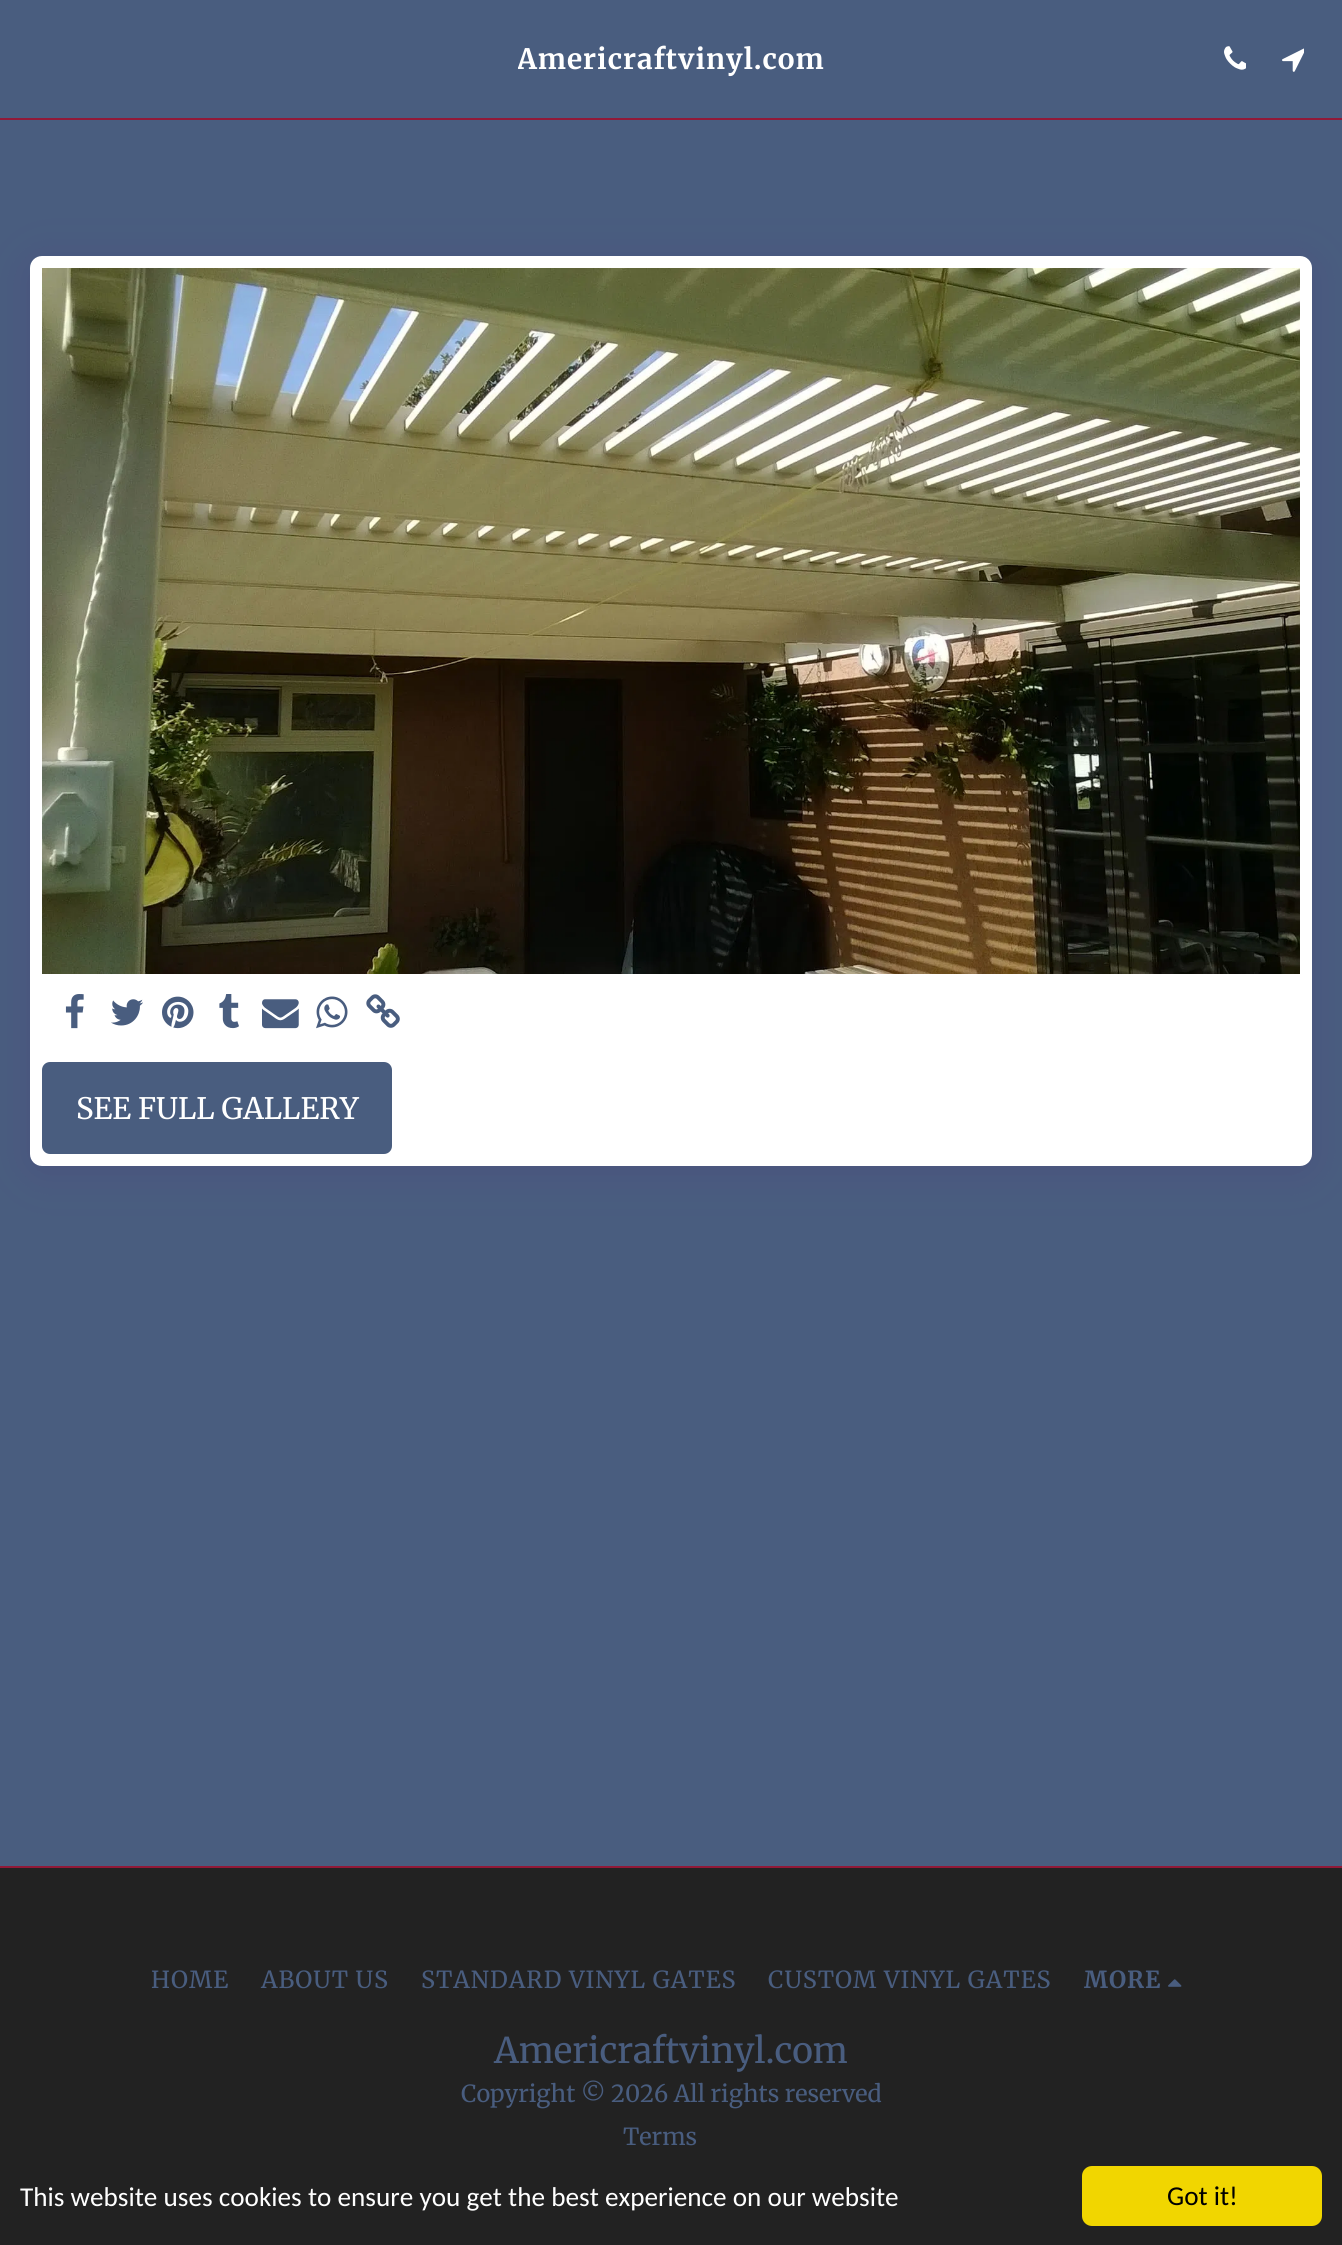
#include <cairo.h>
#include <math.h>
#include <stddef.h>

static cairo_t *ctx;

static void use_color(int r, int g, int b) {
    cairo_set_source_rgb(ctx, r / 255.0, g / 255.0, b / 255.0);
}

static void spaced_text(double x, double y, const char *s, double letter, double word) {
    cairo_move_to(ctx, x, y);
    while (*s) {
        char ch[5] = {0};
        int n = 0;
        do ch[n++] = *s++; while ((*s & 0xC0) == 0x80);
        cairo_show_text(ctx, ch);
        cairo_rel_move_to(ctx, letter + word * (*ch == ' '), 0);
    }
}

static void round_rect(double x, double y, double w, double h, double r) {
    cairo_new_sub_path(ctx);
    cairo_arc(ctx, x + w - r, y + h - r, r, 0, M_PI / 2);
    cairo_arc(ctx, x + r, y + h - r, r, M_PI / 2, M_PI);
    cairo_arc(ctx, x + r, y + r, r, M_PI, 1.5 * M_PI);
    cairo_arc(ctx, x + w - r, y + r, r, 1.5 * M_PI, 2 * M_PI);
    cairo_close_path(ctx);
}

static void shadow(double x, double y, double w, double h, double r, double blur, double alpha) {
    cairo_push_group_with_content(ctx, CAIRO_CONTENT_ALPHA);
    cairo_set_operator(ctx, CAIRO_OPERATOR_SOURCE);
    for (int i = 15; i >= -15 && fmin(w, h) + blur * i / 3 > 0; i -= 2) {
        double e = blur * i / 6;
        cairo_set_source_rgba(ctx, 0, 0, 0, alpha * erfc((i - 1) / 8.5) / 2);
        round_rect(x - e, y - e, w + 2 * e, h + 2 * e, fmax(0, fmin(r + e + blur * .6, fmin(w, h) / 2 + e)));
        cairo_fill(ctx);
    }
    cairo_pattern_t *soft = cairo_pop_group(ctx);
    cairo_mask(ctx, soft);
    cairo_pattern_destroy(soft);
}

static void picture(const char *path, double x, double y, double w, double h) {
    cairo_surface_t *image = cairo_image_surface_create_from_png(path);
    cairo_save(ctx);
    cairo_set_source_surface(ctx, image, x, y);
    cairo_rectangle(ctx, x, y, w, h);
    cairo_fill(ctx);
    cairo_restore(ctx);
    cairo_surface_destroy(image);
}

int main(void) {
    cairo_surface_t *surface = cairo_image_surface_create(CAIRO_FORMAT_RGB24, 1342, 2245);
    ctx = cairo_create(surface);
    cairo_font_options_t *options = cairo_font_options_create();
    cairo_font_options_set_hint_metrics(options, CAIRO_HINT_METRICS_OFF);
    cairo_font_options_set_hint_style(options, CAIRO_HINT_STYLE_NONE);
    cairo_set_font_options(ctx, options);
    cairo_set_miter_limit(ctx, 4);
    use_color(73, 93, 127);
    cairo_paint(ctx);
    use_color(145, 25, 56);
    cairo_rectangle(ctx, 0, 118, 1342, 2);
    cairo_fill(ctx);
    cairo_save(ctx);
    cairo_rectangle(ctx, 518, 40, 306, 40);
    cairo_clip(ctx);
    cairo_select_font_face(ctx, "Merriweather", CAIRO_FONT_SLANT_NORMAL, CAIRO_FONT_WEIGHT_BOLD);
    cairo_set_font_size(ctx, 28);
    use_color(255, 255, 255);
    spaced_text(517, 69, "Americraftvinyl.com", 1, 0);
    cairo_restore(ctx);
    picture("img1.png", 1224, 46, 22, 24);
    picture("img2.png", 1282, 48, 22, 24);
    use_color(77, 63, 122);
    shadow(30, 262, 1282, 910, 12, 20, 0.4);
    use_color(255, 255, 255);
    round_rect(30, 256, 1282, 910, 12);
    cairo_fill(ctx);
    picture("img3.png", 42, 268, 1258, 706);
    picture("img4.png", 65, 994, 19, 35);
    picture("img5.png", 111, 999, 32, 27);
    picture("img6.png", 162, 996, 32, 33);
    picture("img7.png", 219, 994, 20, 35);
    picture("img8.png", 262, 999, 37, 30);
    picture("img9.png", 316, 996, 32, 33);
    picture("img10.png", 366, 994, 34, 34);
    use_color(73, 93, 127);
    round_rect(43, 1063, 348, 90, 7);
    cairo_fill_preserve(ctx);
    cairo_stroke(ctx);
    cairo_select_font_face(ctx, "Merriweather", CAIRO_FONT_SLANT_NORMAL, CAIRO_FONT_WEIGHT_NORMAL);
    cairo_set_font_size(ctx, 29.5);
    use_color(255, 255, 255);
    cairo_move_to(ctx, 76, 1119);
    cairo_show_text(ctx, "SEE FULL GALLERY");
    use_color(34, 34, 34);
    cairo_rectangle(ctx, 0, 1868, 1342, 377);
    cairo_fill(ctx);
    use_color(145, 25, 56);
    cairo_rectangle(ctx, 0, 1866, 1342, 2);
    cairo_fill(ctx);
    cairo_set_font_size(ctx, 23.5);
    use_color(73, 93, 127);
    spaced_text(151, 1988, "HOME", 1, 0);
    spaced_text(261, 1988, "ABOUT US", 1, 0);
    spaced_text(421, 1988, "STANDARD VINYL GATES", 1, 0);
    spaced_text(768, 1988, "CUSTOM VINYL GATES", 1, 0);
    cairo_select_font_face(ctx, "Merriweather", CAIRO_FONT_SLANT_NORMAL, CAIRO_FONT_WEIGHT_BOLD);
    spaced_text(1084, 1988, "MORE", 1, 0);
    picture("img11.png", 1168, 1979, 14, 8);
    cairo_select_font_face(ctx, "Merriweather", CAIRO_FONT_SLANT_NORMAL, CAIRO_FONT_WEIGHT_NORMAL);
    cairo_set_font_size(ctx, 35.25);
    cairo_move_to(ctx, 494, 2063);
    cairo_show_text(ctx, "Americraftvinyl.com");
    cairo_set_font_size(ctx, 23.5);
    cairo_move_to(ctx, 461, 2102);
    cairo_show_text(ctx, "Copyright © 2026 All rights reserved");
    cairo_move_to(ctx, 623, 2145);
    cairo_show_text(ctx, "Terms");
    cairo_select_font_face(ctx, "Carlito", CAIRO_FONT_SLANT_NORMAL, CAIRO_FONT_WEIGHT_NORMAL);
    cairo_set_font_size(ctx, 27.2);
    use_color(255, 255, 255);
    cairo_move_to(ctx, 20, 2206);
    cairo_show_text(ctx, "This website uses cookies to ensure you get the best experience on our website");
    use_color(241, 214, 0);
    round_rect(1082, 2166, 240, 60, 10);
    cairo_fill(ctx);
    use_color(0, 0, 0);
    cairo_move_to(ctx, 1167, 2205);
    cairo_show_text(ctx, "Got it!");
    cairo_surface_write_to_png(surface, "result.png");
    cairo_font_options_destroy(options);
    cairo_destroy(ctx);
    cairo_surface_destroy(surface);
    return 0;
}
